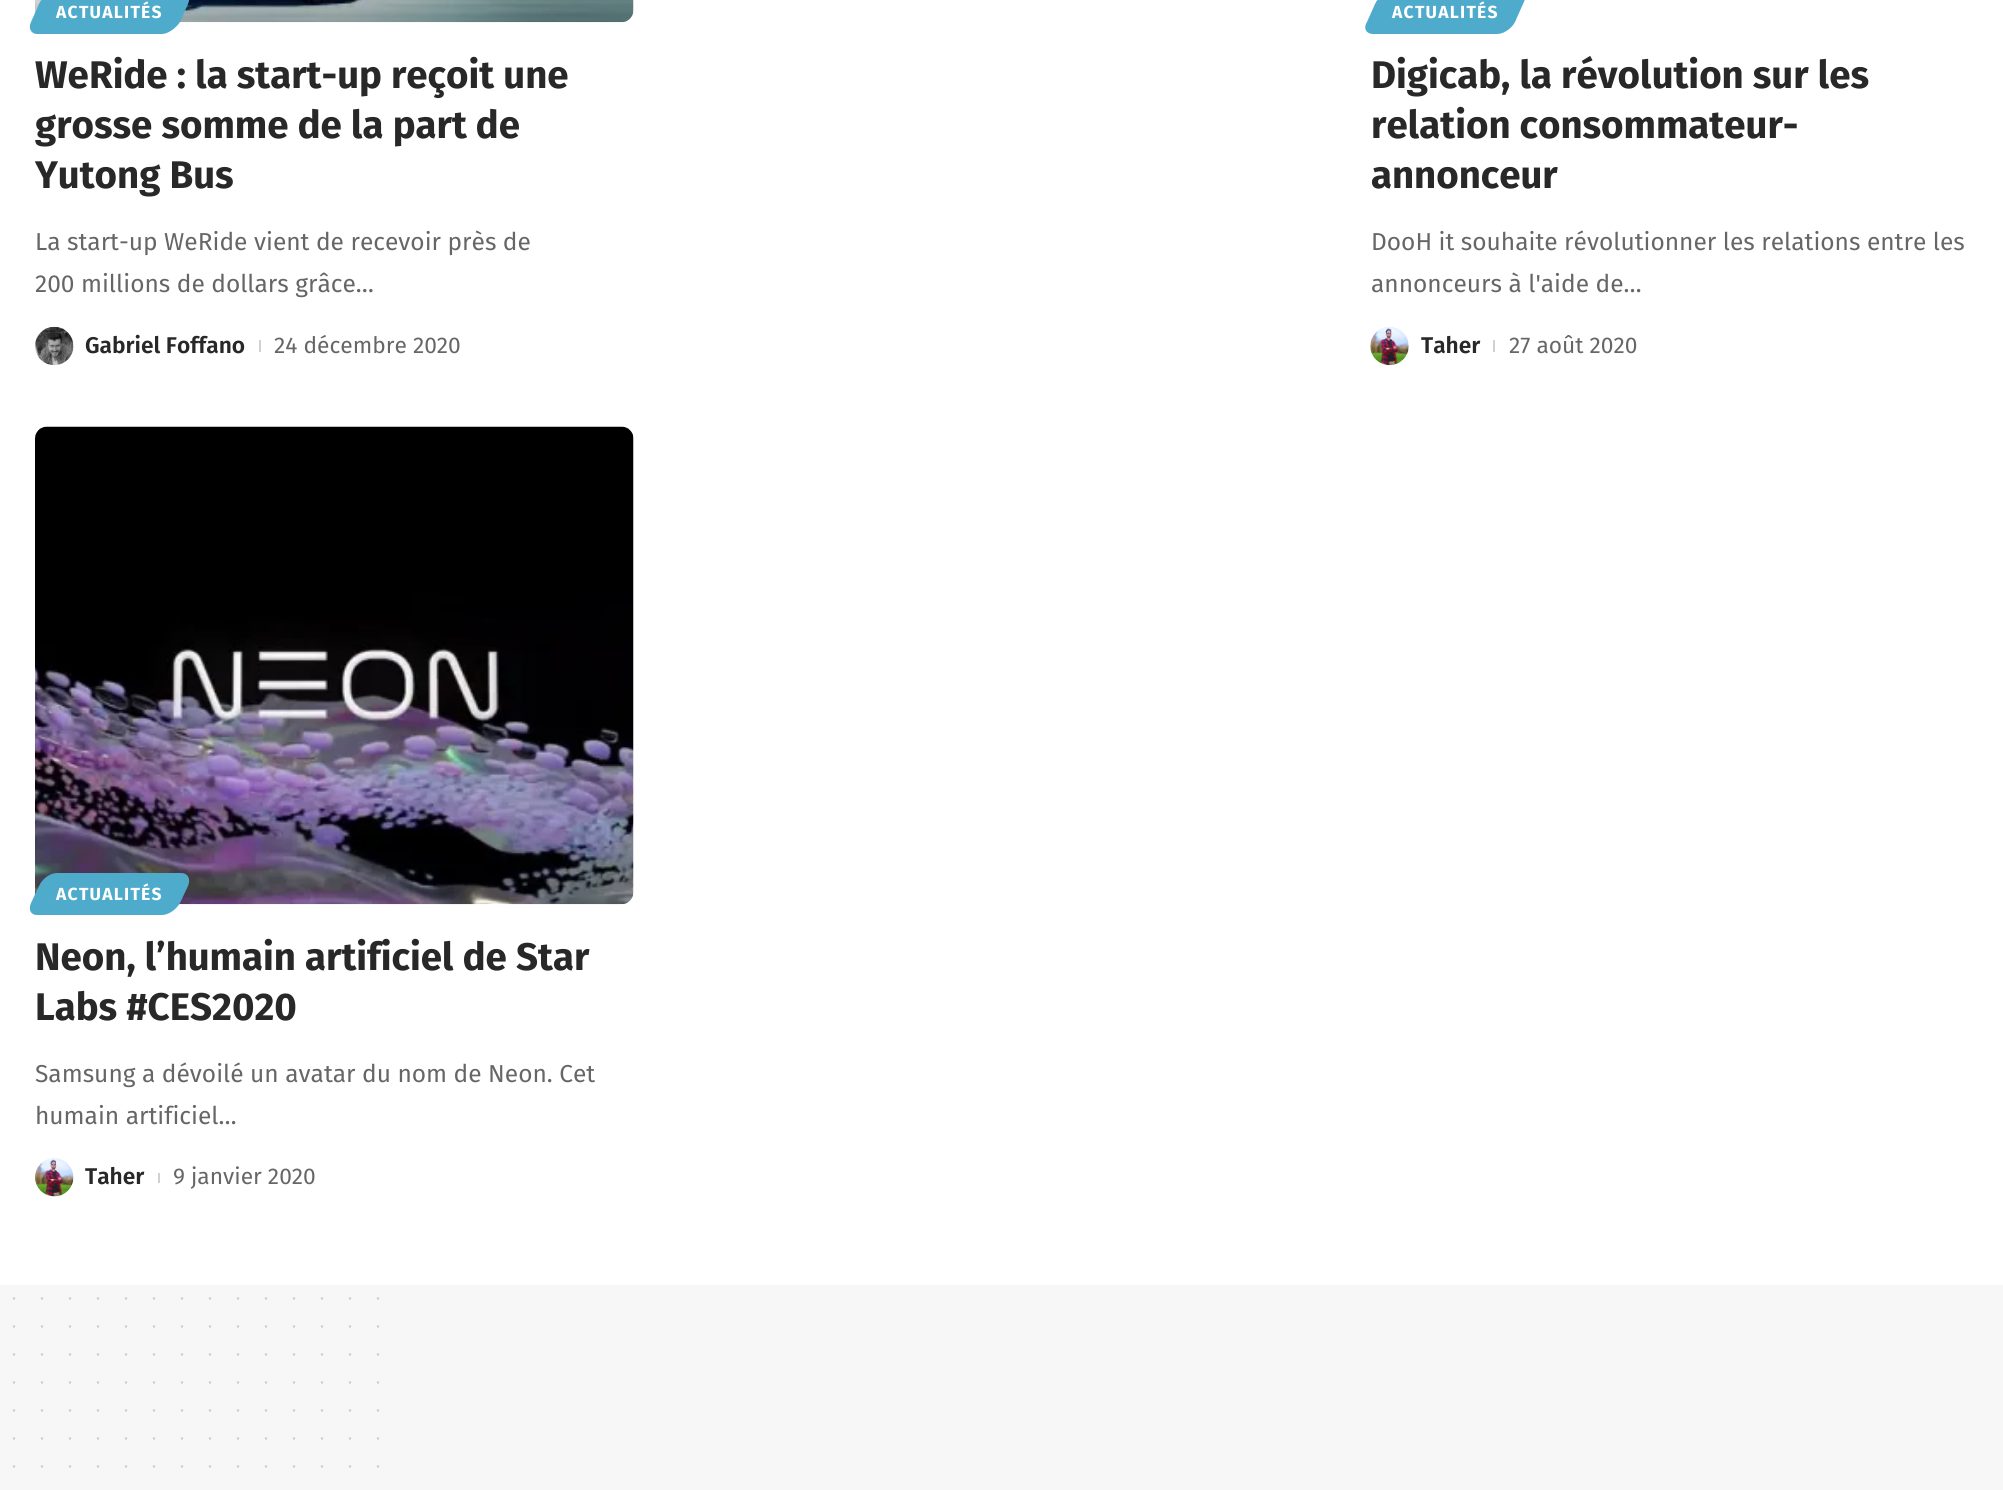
#include <cairo.h>
#include <math.h>
#include <stddef.h>

static cairo_t *ctx;

static void use_color(int r, int g, int b) {
    cairo_set_source_rgb(ctx, r / 255.0, g / 255.0, b / 255.0);
}

static void spaced_text(double x, double y, const char *s, double letter, double word) {
    cairo_move_to(ctx, x, y);
    while (*s) {
        char ch[5] = {0};
        int n = 0;
        do ch[n++] = *s++; while ((*s & 0xC0) == 0x80);
        cairo_show_text(ctx, ch);
        cairo_rel_move_to(ctx, letter + word * (*ch == ' '), 0);
    }
}

static void picture(const char *path, double x, double y, double w, double h) {
    cairo_surface_t *image = cairo_image_surface_create_from_png(path);
    cairo_save(ctx);
    cairo_set_source_surface(ctx, image, x, y);
    cairo_rectangle(ctx, x, y, w, h);
    cairo_fill(ctx);
    cairo_restore(ctx);
    cairo_surface_destroy(image);
}

int main(void) {
    cairo_surface_t *surface = cairo_image_surface_create(CAIRO_FORMAT_RGB24, 2003, 1490);
    ctx = cairo_create(surface);
    cairo_font_options_t *options = cairo_font_options_create();
    cairo_font_options_set_hint_metrics(options, CAIRO_HINT_METRICS_OFF);
    cairo_font_options_set_hint_style(options, CAIRO_HINT_STYLE_NONE);
    cairo_set_font_options(ctx, options);
    cairo_set_miter_limit(ctx, 4);
    use_color(255, 255, 255);
    cairo_paint(ctx);
    picture("img1.png", 35, 0, 599, 23);
    use_color(78, 171, 204);
    cairo_new_path(ctx);
    cairo_move_to(ctx, 57, -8);
    cairo_line_to(ctx, 181, -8);
    cairo_curve_to(ctx, 188, -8, 191, -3, 188, 4);
    cairo_line_to(ctx, 180, 22);
    cairo_curve_to(ctx, 176, 28, 168, 34, 162, 34);
    cairo_line_to(ctx, 37, 34);
    cairo_curve_to(ctx, 31, 34, 28, 28, 31, 22);
    cairo_line_to(ctx, 39, 4);
    cairo_curve_to(ctx, 42, -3, 50, -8, 57, -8);
    cairo_close_path(ctx);
    cairo_fill(ctx);
    cairo_select_font_face(ctx, "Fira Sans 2", CAIRO_FONT_SLANT_NORMAL, CAIRO_FONT_WEIGHT_BOLD);
    cairo_set_font_size(ctx, 17.5);
    use_color(255, 255, 255);
    spaced_text(56, 18, "ACTUALITÉS", 1.25, 0);
    cairo_select_font_face(ctx, "Fira Sans", CAIRO_FONT_SLANT_NORMAL, CAIRO_FONT_WEIGHT_BOLD);
    cairo_set_font_size(ctx, 38.5);
    use_color(40, 40, 40);
    cairo_move_to(ctx, 35, 88);
    cairo_show_text(ctx, "WeRide : la start-up reçoit une");
    cairo_move_to(ctx, 35, 138);
    cairo_show_text(ctx, "grosse somme de la part de");
    cairo_move_to(ctx, 35, 188);
    cairo_show_text(ctx, "Yutong Bus");
    cairo_select_font_face(ctx, "Fira Sans", CAIRO_FONT_SLANT_NORMAL, CAIRO_FONT_WEIGHT_NORMAL);
    cairo_set_font_size(ctx, 24.5);
    use_color(102, 102, 102);
    cairo_move_to(ctx, 35, 250);
    cairo_show_text(ctx, "La start-up WeRide vient de recevoir près de");
    cairo_move_to(ctx, 35, 292);
    cairo_show_text(ctx, "200 millions de dollars grâce…");
    picture("img2.png", 35, 326, 39, 39);
    cairo_select_font_face(ctx, "Fira Sans SemiBold", CAIRO_FONT_SLANT_NORMAL, CAIRO_FONT_WEIGHT_NORMAL);
    cairo_set_font_size(ctx, 22.75);
    use_color(40, 40, 40);
    cairo_move_to(ctx, 85, 353);
    cairo_show_text(ctx, "Gabriel Foffano");
    use_color(209, 209, 209);
    cairo_rectangle(ctx, 259, 340, 2, 12);
    cairo_fill(ctx);
    cairo_select_font_face(ctx, "Fira Sans", CAIRO_FONT_SLANT_NORMAL, CAIRO_FONT_WEIGHT_NORMAL);
    use_color(102, 102, 102);
    cairo_move_to(ctx, 274, 353);
    cairo_show_text(ctx, "24 décembre 2020");
    use_color(78, 171, 204);
    cairo_new_path(ctx);
    cairo_move_to(ctx, 1393, -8);
    cairo_line_to(ctx, 1517, -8);
    cairo_curve_to(ctx, 1524, -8, 1527, -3, 1523, 4);
    cairo_line_to(ctx, 1515, 22);
    cairo_curve_to(ctx, 1512, 28, 1504, 34, 1497, 34);
    cairo_line_to(ctx, 1373, 34);
    cairo_curve_to(ctx, 1366, 34, 1363, 28, 1367, 22);
    cairo_line_to(ctx, 1375, 4);
    cairo_curve_to(ctx, 1378, -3, 1386, -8, 1393, -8);
    cairo_close_path(ctx);
    cairo_fill(ctx);
    cairo_select_font_face(ctx, "Fira Sans 2", CAIRO_FONT_SLANT_NORMAL, CAIRO_FONT_WEIGHT_BOLD);
    cairo_set_font_size(ctx, 17.5);
    use_color(255, 255, 255);
    spaced_text(1392, 18, "ACTUALITÉS", 1.25, 0);
    cairo_select_font_face(ctx, "Fira Sans", CAIRO_FONT_SLANT_NORMAL, CAIRO_FONT_WEIGHT_BOLD);
    cairo_set_font_size(ctx, 38.5);
    use_color(40, 40, 40);
    cairo_move_to(ctx, 1371, 88);
    cairo_show_text(ctx, "Digicab, la révolution sur les");
    cairo_move_to(ctx, 1371, 138);
    cairo_show_text(ctx, "relation consommateur-");
    cairo_move_to(ctx, 1371, 188);
    cairo_show_text(ctx, "annonceur");
    cairo_select_font_face(ctx, "Fira Sans", CAIRO_FONT_SLANT_NORMAL, CAIRO_FONT_WEIGHT_NORMAL);
    cairo_set_font_size(ctx, 24.5);
    use_color(102, 102, 102);
    cairo_move_to(ctx, 1371, 250);
    cairo_show_text(ctx, "DooH it souhaite révolutionner les relations entre les");
    cairo_move_to(ctx, 1371, 292);
    cairo_show_text(ctx, "annonceurs à l'aide de…");
    picture("img3.png", 1370, 327, 39, 39);
    cairo_select_font_face(ctx, "Fira Sans SemiBold", CAIRO_FONT_SLANT_NORMAL, CAIRO_FONT_WEIGHT_NORMAL);
    cairo_set_font_size(ctx, 22.75);
    use_color(40, 40, 40);
    cairo_move_to(ctx, 1421, 353);
    cairo_show_text(ctx, "Taher");
    use_color(209, 209, 209);
    cairo_rectangle(ctx, 1493, 340, 2, 12);
    cairo_fill(ctx);
    cairo_select_font_face(ctx, "Fira Sans", CAIRO_FONT_SLANT_NORMAL, CAIRO_FONT_WEIGHT_NORMAL);
    use_color(102, 102, 102);
    cairo_move_to(ctx, 1509, 353);
    cairo_show_text(ctx, "27 août 2020");
    picture("img4.png", 35, 426, 599, 479);
    use_color(78, 171, 204);
    cairo_new_path(ctx);
    cairo_move_to(ctx, 57, 873);
    cairo_line_to(ctx, 181, 873);
    cairo_curve_to(ctx, 188, 873, 191, 879, 188, 886);
    cairo_line_to(ctx, 180, 903);
    cairo_curve_to(ctx, 176, 910, 168, 915, 162, 915);
    cairo_line_to(ctx, 37, 915);
    cairo_curve_to(ctx, 31, 915, 28, 910, 31, 903);
    cairo_line_to(ctx, 39, 886);
    cairo_curve_to(ctx, 42, 879, 50, 873, 57, 873);
    cairo_close_path(ctx);
    cairo_fill(ctx);
    cairo_select_font_face(ctx, "Fira Sans 2", CAIRO_FONT_SLANT_NORMAL, CAIRO_FONT_WEIGHT_BOLD);
    cairo_set_font_size(ctx, 17.5);
    use_color(255, 255, 255);
    spaced_text(56, 900, "ACTUALITÉS", 1.25, 0);
    cairo_select_font_face(ctx, "Fira Sans", CAIRO_FONT_SLANT_NORMAL, CAIRO_FONT_WEIGHT_BOLD);
    cairo_set_font_size(ctx, 38.5);
    use_color(40, 40, 40);
    cairo_move_to(ctx, 35, 970);
    cairo_show_text(ctx, "Neon, l’humain artificiel de Star");
    cairo_move_to(ctx, 35, 1020);
    cairo_show_text(ctx, "Labs #CES2020");
    cairo_select_font_face(ctx, "Fira Sans", CAIRO_FONT_SLANT_NORMAL, CAIRO_FONT_WEIGHT_NORMAL);
    cairo_set_font_size(ctx, 24.5);
    use_color(102, 102, 102);
    cairo_move_to(ctx, 35, 1082);
    cairo_show_text(ctx, "Samsung a dévoilé un avatar du nom de Neon. Cet");
    cairo_move_to(ctx, 35, 1124);
    cairo_show_text(ctx, "humain artificiel…");
    picture("img5.png", 35, 1158, 39, 39);
    cairo_select_font_face(ctx, "Fira Sans SemiBold", CAIRO_FONT_SLANT_NORMAL, CAIRO_FONT_WEIGHT_NORMAL);
    cairo_set_font_size(ctx, 22.75);
    use_color(40, 40, 40);
    cairo_move_to(ctx, 85, 1184);
    cairo_show_text(ctx, "Taher");
    use_color(209, 209, 209);
    cairo_rectangle(ctx, 158, 1173, 2, 10);
    cairo_fill(ctx);
    cairo_select_font_face(ctx, "Fira Sans", CAIRO_FONT_SLANT_NORMAL, CAIRO_FONT_WEIGHT_NORMAL);
    use_color(102, 102, 102);
    cairo_move_to(ctx, 173, 1184);
    cairo_show_text(ctx, "9 janvier 2020");
    use_color(247, 247, 247);
    cairo_rectangle(ctx, 0, 1285, 2003, 205);
    cairo_fill(ctx);
    cairo_new_path(ctx);
    cairo_move_to(ctx, 14, 1298.5);
    cairo_line_to(ctx, 378.3, 1298.5);
    use_color(206, 206, 206);
    cairo_set_line_width(ctx, 2.6);
    cairo_set_line_cap(ctx, CAIRO_LINE_CAP_ROUND);
    cairo_set_dash(ctx, (double[]){0, 28}, 2, 0);
    cairo_stroke(ctx);
    cairo_new_path(ctx);
    cairo_move_to(ctx, 14, 1326.5);
    cairo_line_to(ctx, 378.3, 1326.5);
    cairo_stroke(ctx);
    cairo_new_path(ctx);
    cairo_move_to(ctx, 14, 1354.5);
    cairo_line_to(ctx, 378.3, 1354.5);
    cairo_stroke(ctx);
    cairo_new_path(ctx);
    cairo_move_to(ctx, 14, 1382.5);
    cairo_line_to(ctx, 378.3, 1382.5);
    cairo_stroke(ctx);
    cairo_new_path(ctx);
    cairo_move_to(ctx, 14, 1410.5);
    cairo_line_to(ctx, 378.3, 1410.5);
    cairo_stroke(ctx);
    cairo_new_path(ctx);
    cairo_move_to(ctx, 14, 1438.5);
    cairo_line_to(ctx, 378.3, 1438.5);
    cairo_stroke(ctx);
    cairo_new_path(ctx);
    cairo_move_to(ctx, 14, 1466.5);
    cairo_line_to(ctx, 378.3, 1466.5);
    cairo_stroke(ctx);
    cairo_surface_write_to_png(surface, "result.png");
    cairo_font_options_destroy(options);
    cairo_destroy(ctx);
    cairo_surface_destroy(surface);
    return 0;
}
